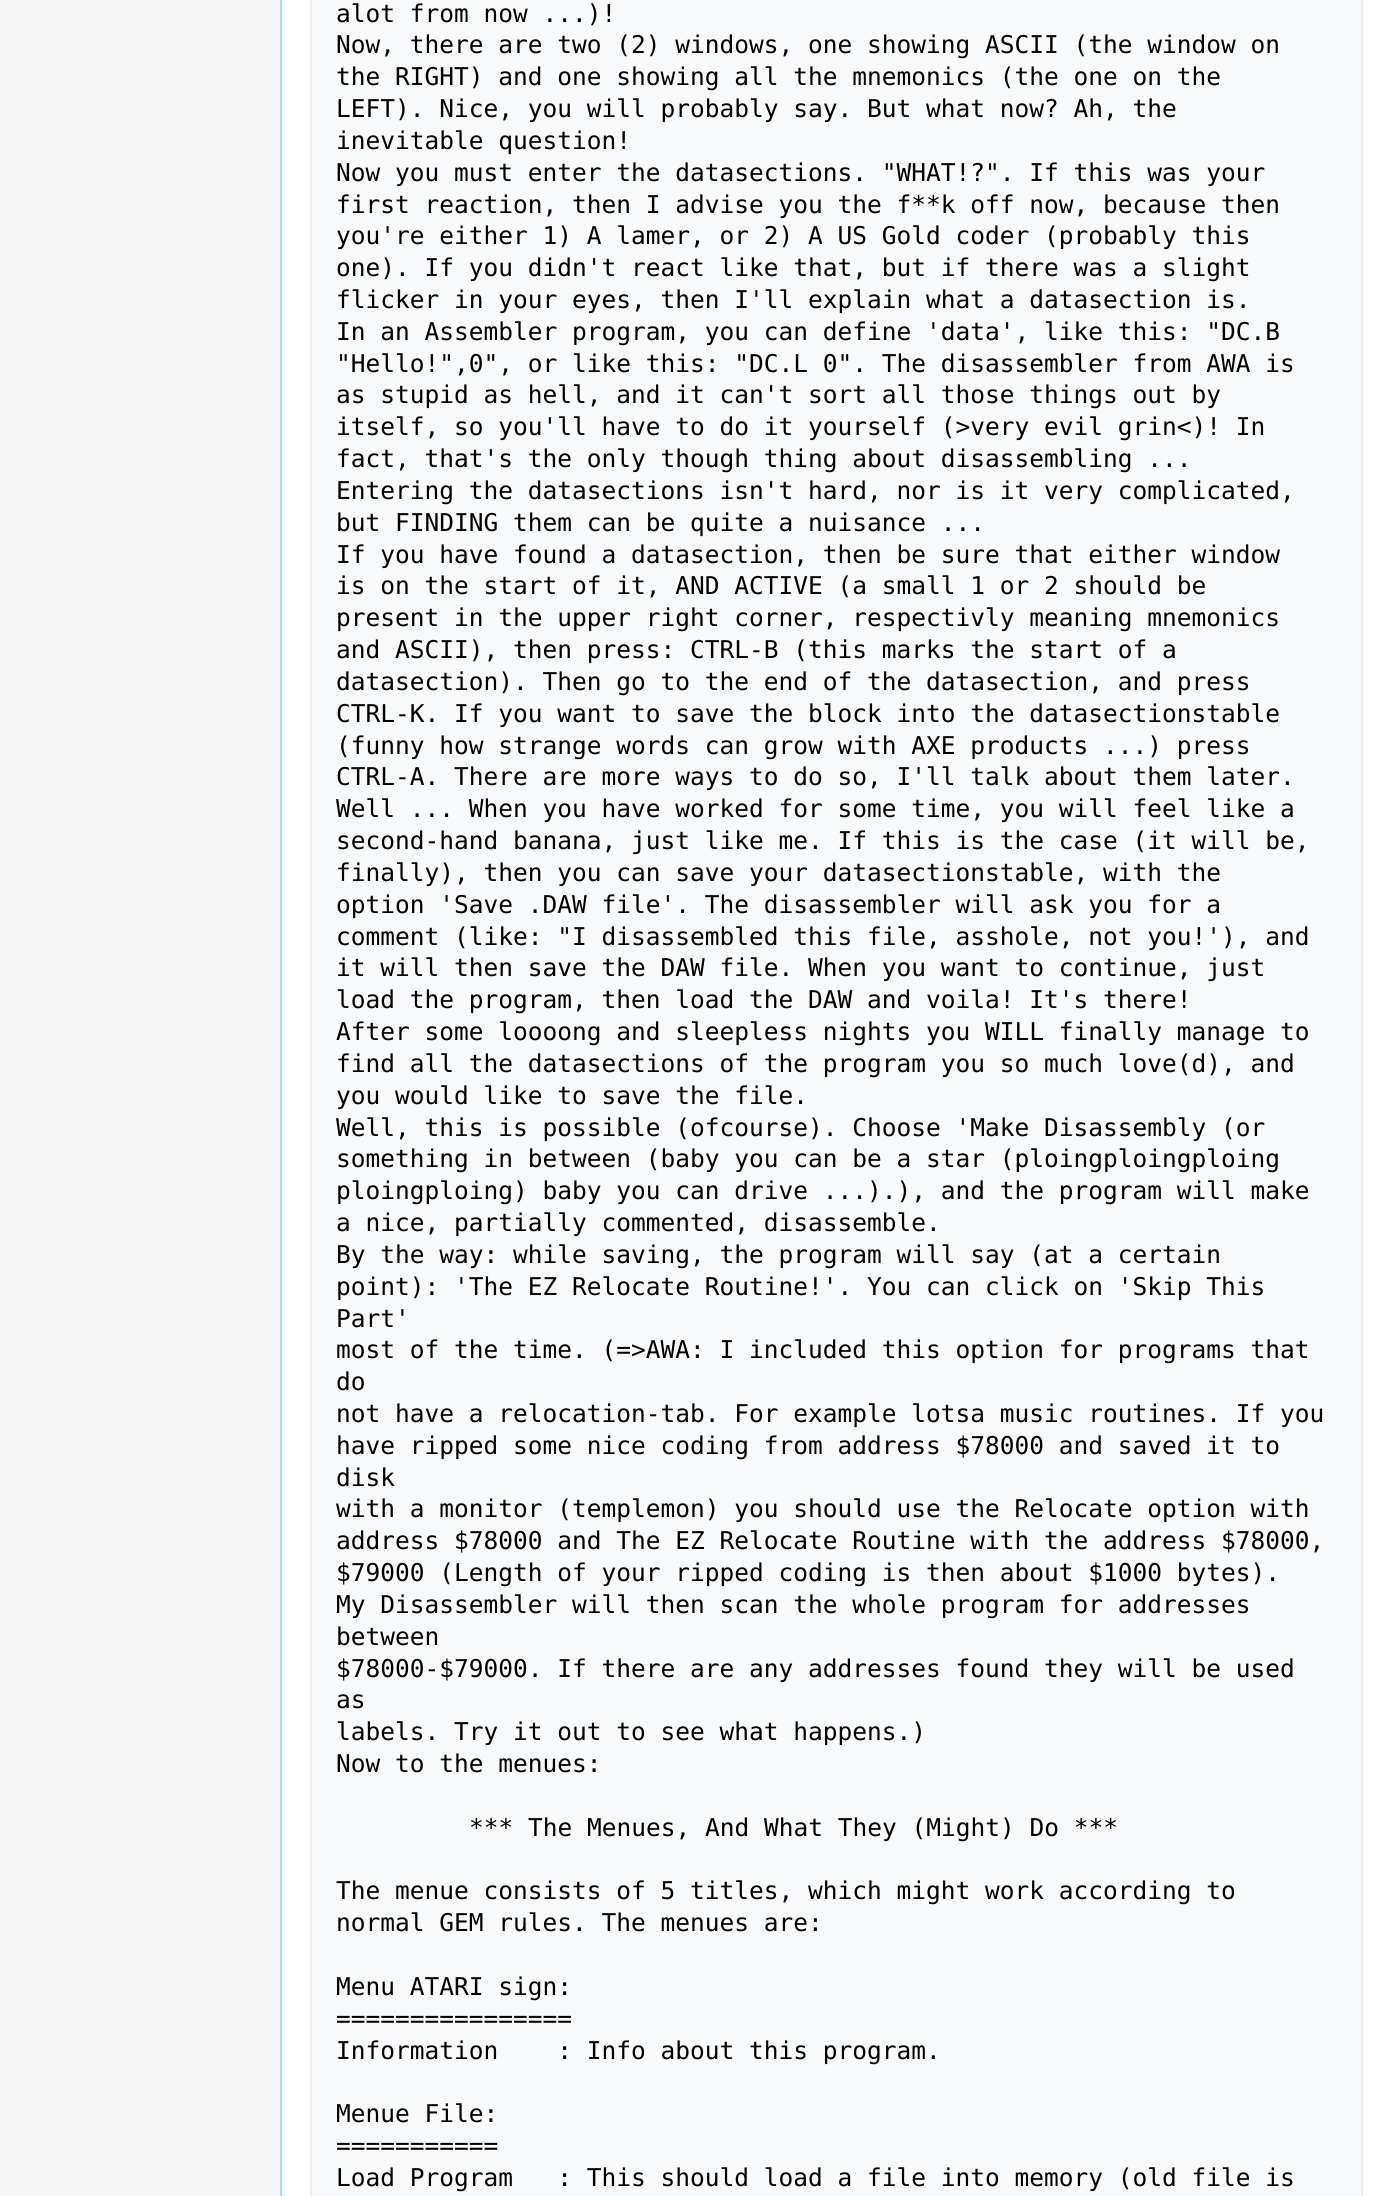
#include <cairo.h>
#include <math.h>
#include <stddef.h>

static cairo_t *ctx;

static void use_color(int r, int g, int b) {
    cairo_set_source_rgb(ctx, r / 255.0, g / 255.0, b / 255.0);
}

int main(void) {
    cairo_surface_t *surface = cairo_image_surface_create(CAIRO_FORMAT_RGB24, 1390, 2196);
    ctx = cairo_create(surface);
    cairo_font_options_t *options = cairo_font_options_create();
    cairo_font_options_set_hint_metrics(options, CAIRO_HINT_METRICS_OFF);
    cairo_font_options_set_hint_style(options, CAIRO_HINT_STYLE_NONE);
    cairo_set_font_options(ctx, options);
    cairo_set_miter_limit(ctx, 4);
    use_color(246, 246, 246);
    cairo_paint(ctx);
    use_color(255, 255, 255);
    cairo_rectangle(ctx, 282, 0, 1108, 2196);
    cairo_fill(ctx);
    use_color(167, 215, 249);
    cairo_rectangle(ctx, 280, 0, 2, 2196);
    cairo_fill(ctx);
    use_color(248, 249, 250);
    cairo_rectangle(ctx, 311, -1, 1051, 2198);
    cairo_fill_preserve(ctx);
    use_color(234, 236, 240);
    cairo_stroke(ctx);
    cairo_select_font_face(ctx, "DejaVu Sans Mono", CAIRO_FONT_SLANT_NORMAL, CAIRO_FONT_WEIGHT_NORMAL);
    cairo_set_font_size(ctx, 24.5);
    use_color(0, 0, 0);
    cairo_move_to(ctx, 336, 22);
    cairo_show_text(ctx, "alot from now ...)!");
    cairo_move_to(ctx, 336, 53);
    cairo_show_text(ctx, "Now, there are two (2) windows, one showing ASCII (the window on");
    cairo_move_to(ctx, 336, 85);
    cairo_show_text(ctx, "the RIGHT) and one showing all the mnemonics (the one on the");
    cairo_move_to(ctx, 336, 117);
    cairo_show_text(ctx, "LEFT). Nice, you will probably say. But what now? Ah, the");
    cairo_move_to(ctx, 336, 149);
    cairo_show_text(ctx, "inevitable question!");
    cairo_move_to(ctx, 336, 181);
    cairo_show_text(ctx, "Now you must enter the datasections. \"WHAT!?\". If this was your");
    cairo_move_to(ctx, 336, 213);
    cairo_show_text(ctx, "first reaction, then I advise you the f**k off now, because then");
    cairo_move_to(ctx, 336, 244);
    cairo_show_text(ctx, "you're either 1) A lamer, or 2) A US Gold coder (probably this");
    cairo_move_to(ctx, 336, 276);
    cairo_show_text(ctx, "one). If you didn't react like that, but if there was a slight");
    cairo_move_to(ctx, 336, 308);
    cairo_show_text(ctx, "flicker in your eyes, then I'll explain what a datasection is.");
    cairo_move_to(ctx, 336, 340);
    cairo_show_text(ctx, "In an Assembler program, you can define 'data', like this: \"DC.B");
    cairo_move_to(ctx, 336, 372);
    cairo_show_text(ctx, "\"Hello!\",0\", or like this: \"DC.L 0\". The disassembler from AWA is");
    cairo_move_to(ctx, 336, 403);
    cairo_show_text(ctx, "as stupid as hell, and it can't sort all those things out by");
    cairo_move_to(ctx, 336, 435);
    cairo_show_text(ctx, "itself, so you'll have to do it yourself (>very evil grin<)! In");
    cairo_move_to(ctx, 336, 467);
    cairo_show_text(ctx, "fact, that's the only though thing about disassembling ...");
    cairo_move_to(ctx, 336, 499);
    cairo_show_text(ctx, "Entering the datasections isn't hard, nor is it very complicated,");
    cairo_move_to(ctx, 336, 531);
    cairo_show_text(ctx, "but FINDING them can be quite a nuisance ...");
    cairo_move_to(ctx, 336, 563);
    cairo_show_text(ctx, "If you have found a datasection, then be sure that either window");
    cairo_move_to(ctx, 336, 594);
    cairo_show_text(ctx, "is on the start of it, AND ACTIVE (a small 1 or 2 should be");
    cairo_move_to(ctx, 336, 626);
    cairo_show_text(ctx, "present in the upper right corner, respectivly meaning mnemonics");
    cairo_move_to(ctx, 336, 658);
    cairo_show_text(ctx, "and ASCII), then press: CTRL-B (this marks the start of a");
    cairo_move_to(ctx, 336, 690);
    cairo_show_text(ctx, "datasection). Then go to the end of the datasection, and press");
    cairo_move_to(ctx, 336, 722);
    cairo_show_text(ctx, "CTRL-K. If you want to save the block into the datasectionstable");
    cairo_move_to(ctx, 336, 754);
    cairo_show_text(ctx, "(funny how strange words can grow with AXE products ...) press");
    cairo_move_to(ctx, 336, 785);
    cairo_show_text(ctx, "CTRL-A. There are more ways to do so, I'll talk about them later.");
    cairo_move_to(ctx, 336, 817);
    cairo_show_text(ctx, "Well ... When you have worked for some time, you will feel like a");
    cairo_move_to(ctx, 336, 849);
    cairo_show_text(ctx, "second-hand banana, just like me. If this is the case (it will be,");
    cairo_move_to(ctx, 336, 881);
    cairo_show_text(ctx, "finally), then you can save your datasectionstable, with the");
    cairo_move_to(ctx, 336, 913);
    cairo_show_text(ctx, "option 'Save .DAW file'. The disassembler will ask you for a");
    cairo_move_to(ctx, 336, 945);
    cairo_show_text(ctx, "comment (like: \"I disassembled this file, asshole, not you!'), and");
    cairo_move_to(ctx, 336, 976);
    cairo_show_text(ctx, "it will then save the DAW file. When you want to continue, just");
    cairo_move_to(ctx, 336, 1008);
    cairo_show_text(ctx, "load the program, then load the DAW and voila! It's there!");
    cairo_move_to(ctx, 336, 1040);
    cairo_show_text(ctx, "After some loooong and sleepless nights you WILL finally manage to");
    cairo_move_to(ctx, 336, 1072);
    cairo_show_text(ctx, "find all the datasections of the program you so much love(d), and");
    cairo_move_to(ctx, 336, 1104);
    cairo_show_text(ctx, "you would like to save the file.");
    cairo_move_to(ctx, 336, 1136);
    cairo_show_text(ctx, "Well, this is possible (ofcourse). Choose 'Make Disassembly (or");
    cairo_move_to(ctx, 336, 1167);
    cairo_show_text(ctx, "something in between (baby you can be a star (ploingploingploing");
    cairo_move_to(ctx, 336, 1199);
    cairo_show_text(ctx, "ploingploing) baby you can drive ...).), and the program will make");
    cairo_move_to(ctx, 336, 1231);
    cairo_show_text(ctx, "a nice, partially commented, disassemble.");
    cairo_move_to(ctx, 336, 1263);
    cairo_show_text(ctx, "By the way: while saving, the program will say (at a certain");
    cairo_move_to(ctx, 336, 1295);
    cairo_show_text(ctx, "point): 'The EZ Relocate Routine!'. You can click on 'Skip This");
    cairo_move_to(ctx, 336, 1327);
    cairo_show_text(ctx, "Part'");
    cairo_move_to(ctx, 336, 1358);
    cairo_show_text(ctx, "most of the time. (=>AWA: I included this option for programs that");
    cairo_move_to(ctx, 336, 1390);
    cairo_show_text(ctx, "do");
    cairo_move_to(ctx, 336, 1422);
    cairo_show_text(ctx, "not have a relocation-tab. For example lotsa music routines. If you");
    cairo_move_to(ctx, 336, 1454);
    cairo_show_text(ctx, "have ripped some nice coding from address $78000 and saved it to");
    cairo_move_to(ctx, 336, 1486);
    cairo_show_text(ctx, "disk");
    cairo_move_to(ctx, 336, 1517);
    cairo_show_text(ctx, "with a monitor (templemon) you should use the Relocate option with");
    cairo_move_to(ctx, 336, 1549);
    cairo_show_text(ctx, "address $78000 and The EZ Relocate Routine with the address $78000,");
    cairo_move_to(ctx, 336, 1581);
    cairo_show_text(ctx, "$79000 (Length of your ripped coding is then about $1000 bytes).");
    cairo_move_to(ctx, 336, 1613);
    cairo_show_text(ctx, "My Disassembler will then scan the whole program for addresses");
    cairo_move_to(ctx, 336, 1645);
    cairo_show_text(ctx, "between");
    cairo_move_to(ctx, 336, 1677);
    cairo_show_text(ctx, "$78000-$79000. If there are any addresses found they will be used");
    cairo_move_to(ctx, 336, 1708);
    cairo_show_text(ctx, "as");
    cairo_move_to(ctx, 336, 1740);
    cairo_show_text(ctx, "labels. Try it out to see what happens.)");
    cairo_move_to(ctx, 336, 1772);
    cairo_show_text(ctx, "Now to the menues:");
    cairo_move_to(ctx, 469, 1836);
    cairo_show_text(ctx, "*** The Menues, And What They (Might) Do ***");
    cairo_move_to(ctx, 336, 1899);
    cairo_show_text(ctx, "The menue consists of 5 titles, which might work according to");
    cairo_move_to(ctx, 336, 1931);
    cairo_show_text(ctx, "normal GEM rules. The menues are:");
    cairo_move_to(ctx, 336, 1995);
    cairo_show_text(ctx, "Menu ATARI sign:");
    cairo_move_to(ctx, 336, 2027);
    cairo_show_text(ctx, "================");
    cairo_move_to(ctx, 336, 2059);
    cairo_show_text(ctx, "Information    : Info about this program.");
    cairo_move_to(ctx, 336, 2122);
    cairo_show_text(ctx, "Menue File:");
    cairo_move_to(ctx, 336, 2154);
    cairo_show_text(ctx, "===========");
    cairo_move_to(ctx, 336, 2186);
    cairo_show_text(ctx, "Load Program   : This should load a file into memory (old file is");
    cairo_surface_write_to_png(surface, "result.png");
    cairo_font_options_destroy(options);
    cairo_destroy(ctx);
    cairo_surface_destroy(surface);
    return 0;
}
